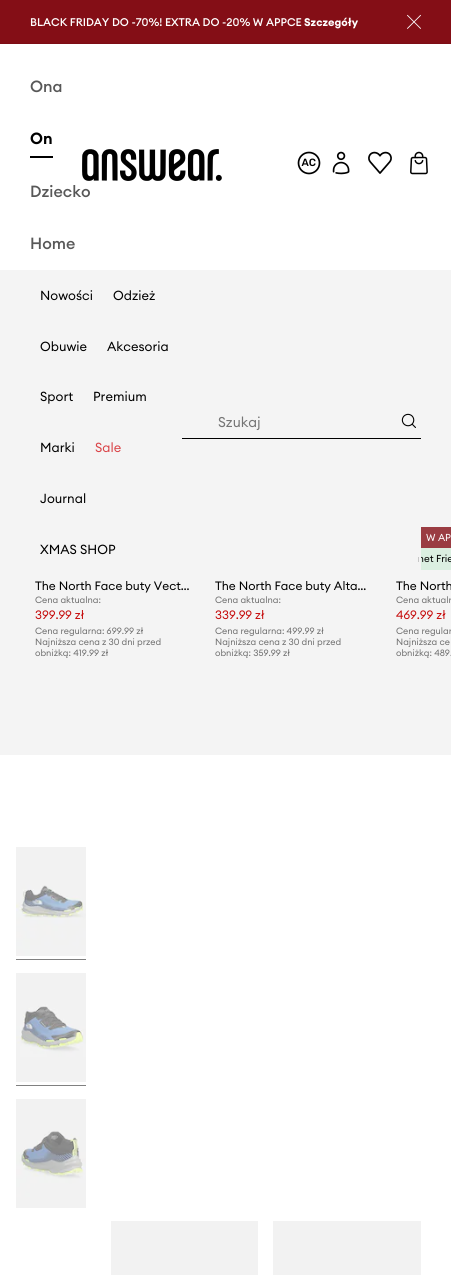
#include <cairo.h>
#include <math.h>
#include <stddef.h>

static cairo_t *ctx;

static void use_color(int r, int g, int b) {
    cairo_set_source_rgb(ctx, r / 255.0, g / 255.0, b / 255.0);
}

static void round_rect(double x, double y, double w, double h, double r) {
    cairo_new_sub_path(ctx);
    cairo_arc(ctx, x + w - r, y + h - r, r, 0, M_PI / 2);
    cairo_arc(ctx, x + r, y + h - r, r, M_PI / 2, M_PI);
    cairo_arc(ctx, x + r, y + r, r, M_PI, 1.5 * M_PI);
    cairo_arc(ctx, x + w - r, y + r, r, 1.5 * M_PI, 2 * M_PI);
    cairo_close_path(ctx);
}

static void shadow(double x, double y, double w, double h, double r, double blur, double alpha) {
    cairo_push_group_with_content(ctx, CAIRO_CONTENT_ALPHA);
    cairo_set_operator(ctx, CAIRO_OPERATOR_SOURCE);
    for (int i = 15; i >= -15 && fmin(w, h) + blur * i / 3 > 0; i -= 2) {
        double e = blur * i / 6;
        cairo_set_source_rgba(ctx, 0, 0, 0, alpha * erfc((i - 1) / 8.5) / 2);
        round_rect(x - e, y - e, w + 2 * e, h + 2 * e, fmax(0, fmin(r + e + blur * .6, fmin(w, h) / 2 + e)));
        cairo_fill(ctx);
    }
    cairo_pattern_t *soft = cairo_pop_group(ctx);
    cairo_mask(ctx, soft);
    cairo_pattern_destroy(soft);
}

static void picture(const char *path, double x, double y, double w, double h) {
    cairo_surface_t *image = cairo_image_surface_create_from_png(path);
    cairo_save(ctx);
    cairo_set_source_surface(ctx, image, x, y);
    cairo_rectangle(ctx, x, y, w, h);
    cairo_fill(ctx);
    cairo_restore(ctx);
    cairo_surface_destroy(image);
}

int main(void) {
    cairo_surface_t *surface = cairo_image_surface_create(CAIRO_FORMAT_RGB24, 451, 1275);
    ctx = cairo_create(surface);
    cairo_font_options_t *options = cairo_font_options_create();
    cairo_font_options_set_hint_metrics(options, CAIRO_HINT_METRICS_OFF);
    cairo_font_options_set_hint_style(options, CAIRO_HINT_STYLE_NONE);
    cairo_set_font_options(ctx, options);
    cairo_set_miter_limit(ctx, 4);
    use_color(255, 255, 255);
    cairo_paint(ctx);
    use_color(132, 14, 22);
    cairo_rectangle(ctx, 0, 0, 451, 44);
    cairo_fill(ctx);
    cairo_select_font_face(ctx, "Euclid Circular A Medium", CAIRO_FONT_SLANT_NORMAL, CAIRO_FONT_WEIGHT_NORMAL);
    cairo_set_font_size(ctx, 11);
    use_color(255, 255, 255);
    cairo_move_to(ctx, 30, 26);
    cairo_show_text(ctx, "BLACK FRIDAY DO -70%! EXTRA DO -20% W APPCE");
    cairo_select_font_face(ctx, "Euclid Circular A", CAIRO_FONT_SLANT_NORMAL, CAIRO_FONT_WEIGHT_BOLD);
    cairo_move_to(ctx, 304, 26);
    cairo_show_text(ctx, "Szczegóły");
    picture("img1.png", 407, 14, 14, 15);
    use_color(0, 0, 0);
    shadow(0, 45, 451, 67, 0, 1.5, 0.3);
    use_color(255, 255, 255);
    cairo_rectangle(ctx, 0, 44, 451, 71);
    cairo_fill(ctx);
    cairo_select_font_face(ctx, "Euclid Circular A Medium", CAIRO_FONT_SLANT_NORMAL, CAIRO_FONT_WEIGHT_NORMAL);
    cairo_set_font_size(ctx, 16);
    use_color(88, 88, 88);
    cairo_move_to(ctx, 30, 92);
    cairo_show_text(ctx, "Ona");
    cairo_select_font_face(ctx, "Euclid Circular A SemiBold", CAIRO_FONT_SLANT_NORMAL, CAIRO_FONT_WEIGHT_NORMAL);
    use_color(0, 0, 0);
    cairo_move_to(ctx, 30, 144);
    cairo_show_text(ctx, "On");
    cairo_rectangle(ctx, 30, 156, 23, 2);
    cairo_fill(ctx);
    cairo_select_font_face(ctx, "Euclid Circular A Medium", CAIRO_FONT_SLANT_NORMAL, CAIRO_FONT_WEIGHT_NORMAL);
    use_color(88, 88, 88);
    cairo_move_to(ctx, 30, 197);
    cairo_show_text(ctx, "Dziecko");
    cairo_move_to(ctx, 30, 249);
    cairo_show_text(ctx, "Home");
    picture("img2.png", 82, 149, 140, 32);
    picture("img3.png", 297, 151, 24, 24);
    picture("img4.png", 332, 151, 18, 24);
    picture("img5.png", 368, 151, 24, 23);
    picture("img6.png", 410, 151, 18, 24);
    use_color(244, 244, 244);
    cairo_rectangle(ctx, 0, 270, 451, 485);
    cairo_fill(ctx);
    use_color(219, 239, 225);
    cairo_rectangle(ctx, 421, 548, 30, 22);
    cairo_fill(ctx);
    cairo_select_font_face(ctx, "Euclid Circular A", CAIRO_FONT_SLANT_NORMAL, CAIRO_FONT_WEIGHT_NORMAL);
    cairo_set_font_size(ctx, 10);
    use_color(0, 0, 0);
    cairo_move_to(ctx, 418, 562);
    cairo_show_text(ctx, "net Frie");
    use_color(244, 244, 244);
    cairo_rectangle(ctx, 419, 557, 2, 5);
    cairo_fill(ctx);
    cairo_set_font_size(ctx, 13);
    use_color(0, 0, 0);
    cairo_move_to(ctx, 40, 300);
    cairo_show_text(ctx, "Nowości");
    cairo_move_to(ctx, 113, 300);
    cairo_show_text(ctx, "Odzież");
    cairo_move_to(ctx, 40, 351);
    cairo_show_text(ctx, "Obuwie");
    cairo_move_to(ctx, 107, 351);
    cairo_show_text(ctx, "Akcesoria");
    cairo_move_to(ctx, 40, 401);
    cairo_show_text(ctx, "Sport");
    cairo_move_to(ctx, 93, 401);
    cairo_show_text(ctx, "Premium");
    cairo_move_to(ctx, 40, 452);
    cairo_show_text(ctx, "Marki");
    use_color(218, 68, 72);
    cairo_move_to(ctx, 95, 452);
    cairo_show_text(ctx, "Sale");
    use_color(0, 0, 0);
    cairo_move_to(ctx, 40, 503);
    cairo_show_text(ctx, "Journal");
    cairo_move_to(ctx, 40, 554);
    cairo_show_text(ctx, "XMAS SHOP");
    cairo_rectangle(ctx, 182, 438, 239, 1);
    cairo_fill(ctx);
    cairo_set_font_size(ctx, 14);
    use_color(117, 117, 117);
    cairo_move_to(ctx, 218, 427);
    cairo_show_text(ctx, "Szukaj");
    picture("img7.png", 401, 413, 15, 15);
    cairo_set_font_size(ctx, 12);
    use_color(0, 0, 0);
    cairo_move_to(ctx, 35, 590);
    cairo_show_text(ctx, "The North Face buty Vect…");
    cairo_set_font_size(ctx, 9);
    use_color(110, 110, 110);
    cairo_move_to(ctx, 35, 603);
    cairo_show_text(ctx, "Cena aktualna:");
    cairo_set_font_size(ctx, 12);
    use_color(198, 12, 12);
    cairo_move_to(ctx, 35, 619);
    cairo_show_text(ctx, "399.99 zł");
    cairo_set_font_size(ctx, 9);
    use_color(110, 110, 110);
    cairo_move_to(ctx, 35, 634);
    cairo_show_text(ctx, "Cena regularna: 699.99 zł");
    cairo_move_to(ctx, 35, 645);
    cairo_show_text(ctx, "Najniższa cena z 30 dni przed");
    cairo_move_to(ctx, 35, 656);
    cairo_show_text(ctx, "obniżką: 419.99 zł");
    cairo_set_font_size(ctx, 12);
    use_color(0, 0, 0);
    cairo_move_to(ctx, 215, 590);
    cairo_show_text(ctx, "The North Face buty Alta…");
    cairo_set_font_size(ctx, 9);
    use_color(110, 110, 110);
    cairo_move_to(ctx, 215, 603);
    cairo_show_text(ctx, "Cena aktualna:");
    cairo_set_font_size(ctx, 12);
    use_color(198, 12, 12);
    cairo_move_to(ctx, 215, 619);
    cairo_show_text(ctx, "339.99 zł");
    cairo_set_font_size(ctx, 9);
    use_color(110, 110, 110);
    cairo_move_to(ctx, 215, 634);
    cairo_show_text(ctx, "Cena regularna: 499.99 zł");
    cairo_move_to(ctx, 215, 645);
    cairo_show_text(ctx, "Najniższa cena z 30 dni przed");
    cairo_move_to(ctx, 215, 656);
    cairo_show_text(ctx, "obniżką: 359.99 zł");
    use_color(154, 60, 66);
    cairo_rectangle(ctx, 421, 527, 30, 21);
    cairo_fill(ctx);
    cairo_set_font_size(ctx, 10);
    use_color(255, 255, 255);
    cairo_move_to(ctx, 426, 541);
    cairo_show_text(ctx, "W AP");
    cairo_set_font_size(ctx, 12);
    use_color(0, 0, 0);
    cairo_move_to(ctx, 396, 590);
    cairo_show_text(ctx, "The North");
    cairo_set_font_size(ctx, 9);
    use_color(110, 110, 110);
    cairo_move_to(ctx, 396, 603);
    cairo_show_text(ctx, "Cena aktualn");
    cairo_set_font_size(ctx, 12);
    use_color(198, 12, 12);
    cairo_move_to(ctx, 396, 619);
    cairo_show_text(ctx, "469.99 zł");
    cairo_set_font_size(ctx, 9);
    use_color(110, 110, 110);
    cairo_move_to(ctx, 396, 634);
    cairo_show_text(ctx, "Cena regular");
    cairo_move_to(ctx, 396, 645);
    cairo_show_text(ctx, "Najniższa ce");
    cairo_move_to(ctx, 396, 656);
    cairo_show_text(ctx, "obniżką: 489.");
    use_color(128, 128, 128);
    cairo_rectangle(ctx, 16, 959, 70, 1);
    cairo_fill(ctx);
    use_color(251, 251, 251);
    cairo_rectangle(ctx, 16, 847, 70, 109);
    cairo_fill(ctx);
    picture("img8.png", 16, 847, 70, 109);
    use_color(128, 128, 128);
    cairo_rectangle(ctx, 16, 1085, 70, 1);
    cairo_fill(ctx);
    use_color(251, 251, 251);
    cairo_rectangle(ctx, 16, 973, 70, 109);
    cairo_fill(ctx);
    picture("img9.png", 16, 973, 70, 109);
    cairo_rectangle(ctx, 16, 1099, 70, 109);
    cairo_fill(ctx);
    picture("img10.png", 16, 1099, 70, 109);
    use_color(242, 242, 242);
    cairo_rectangle(ctx, 111, 1221, 147, 54);
    cairo_fill(ctx);
    cairo_rectangle(ctx, 273, 1221, 148, 54);
    cairo_fill(ctx);
    cairo_surface_write_to_png(surface, "result.png");
    cairo_font_options_destroy(options);
    cairo_destroy(ctx);
    cairo_surface_destroy(surface);
    return 0;
}
